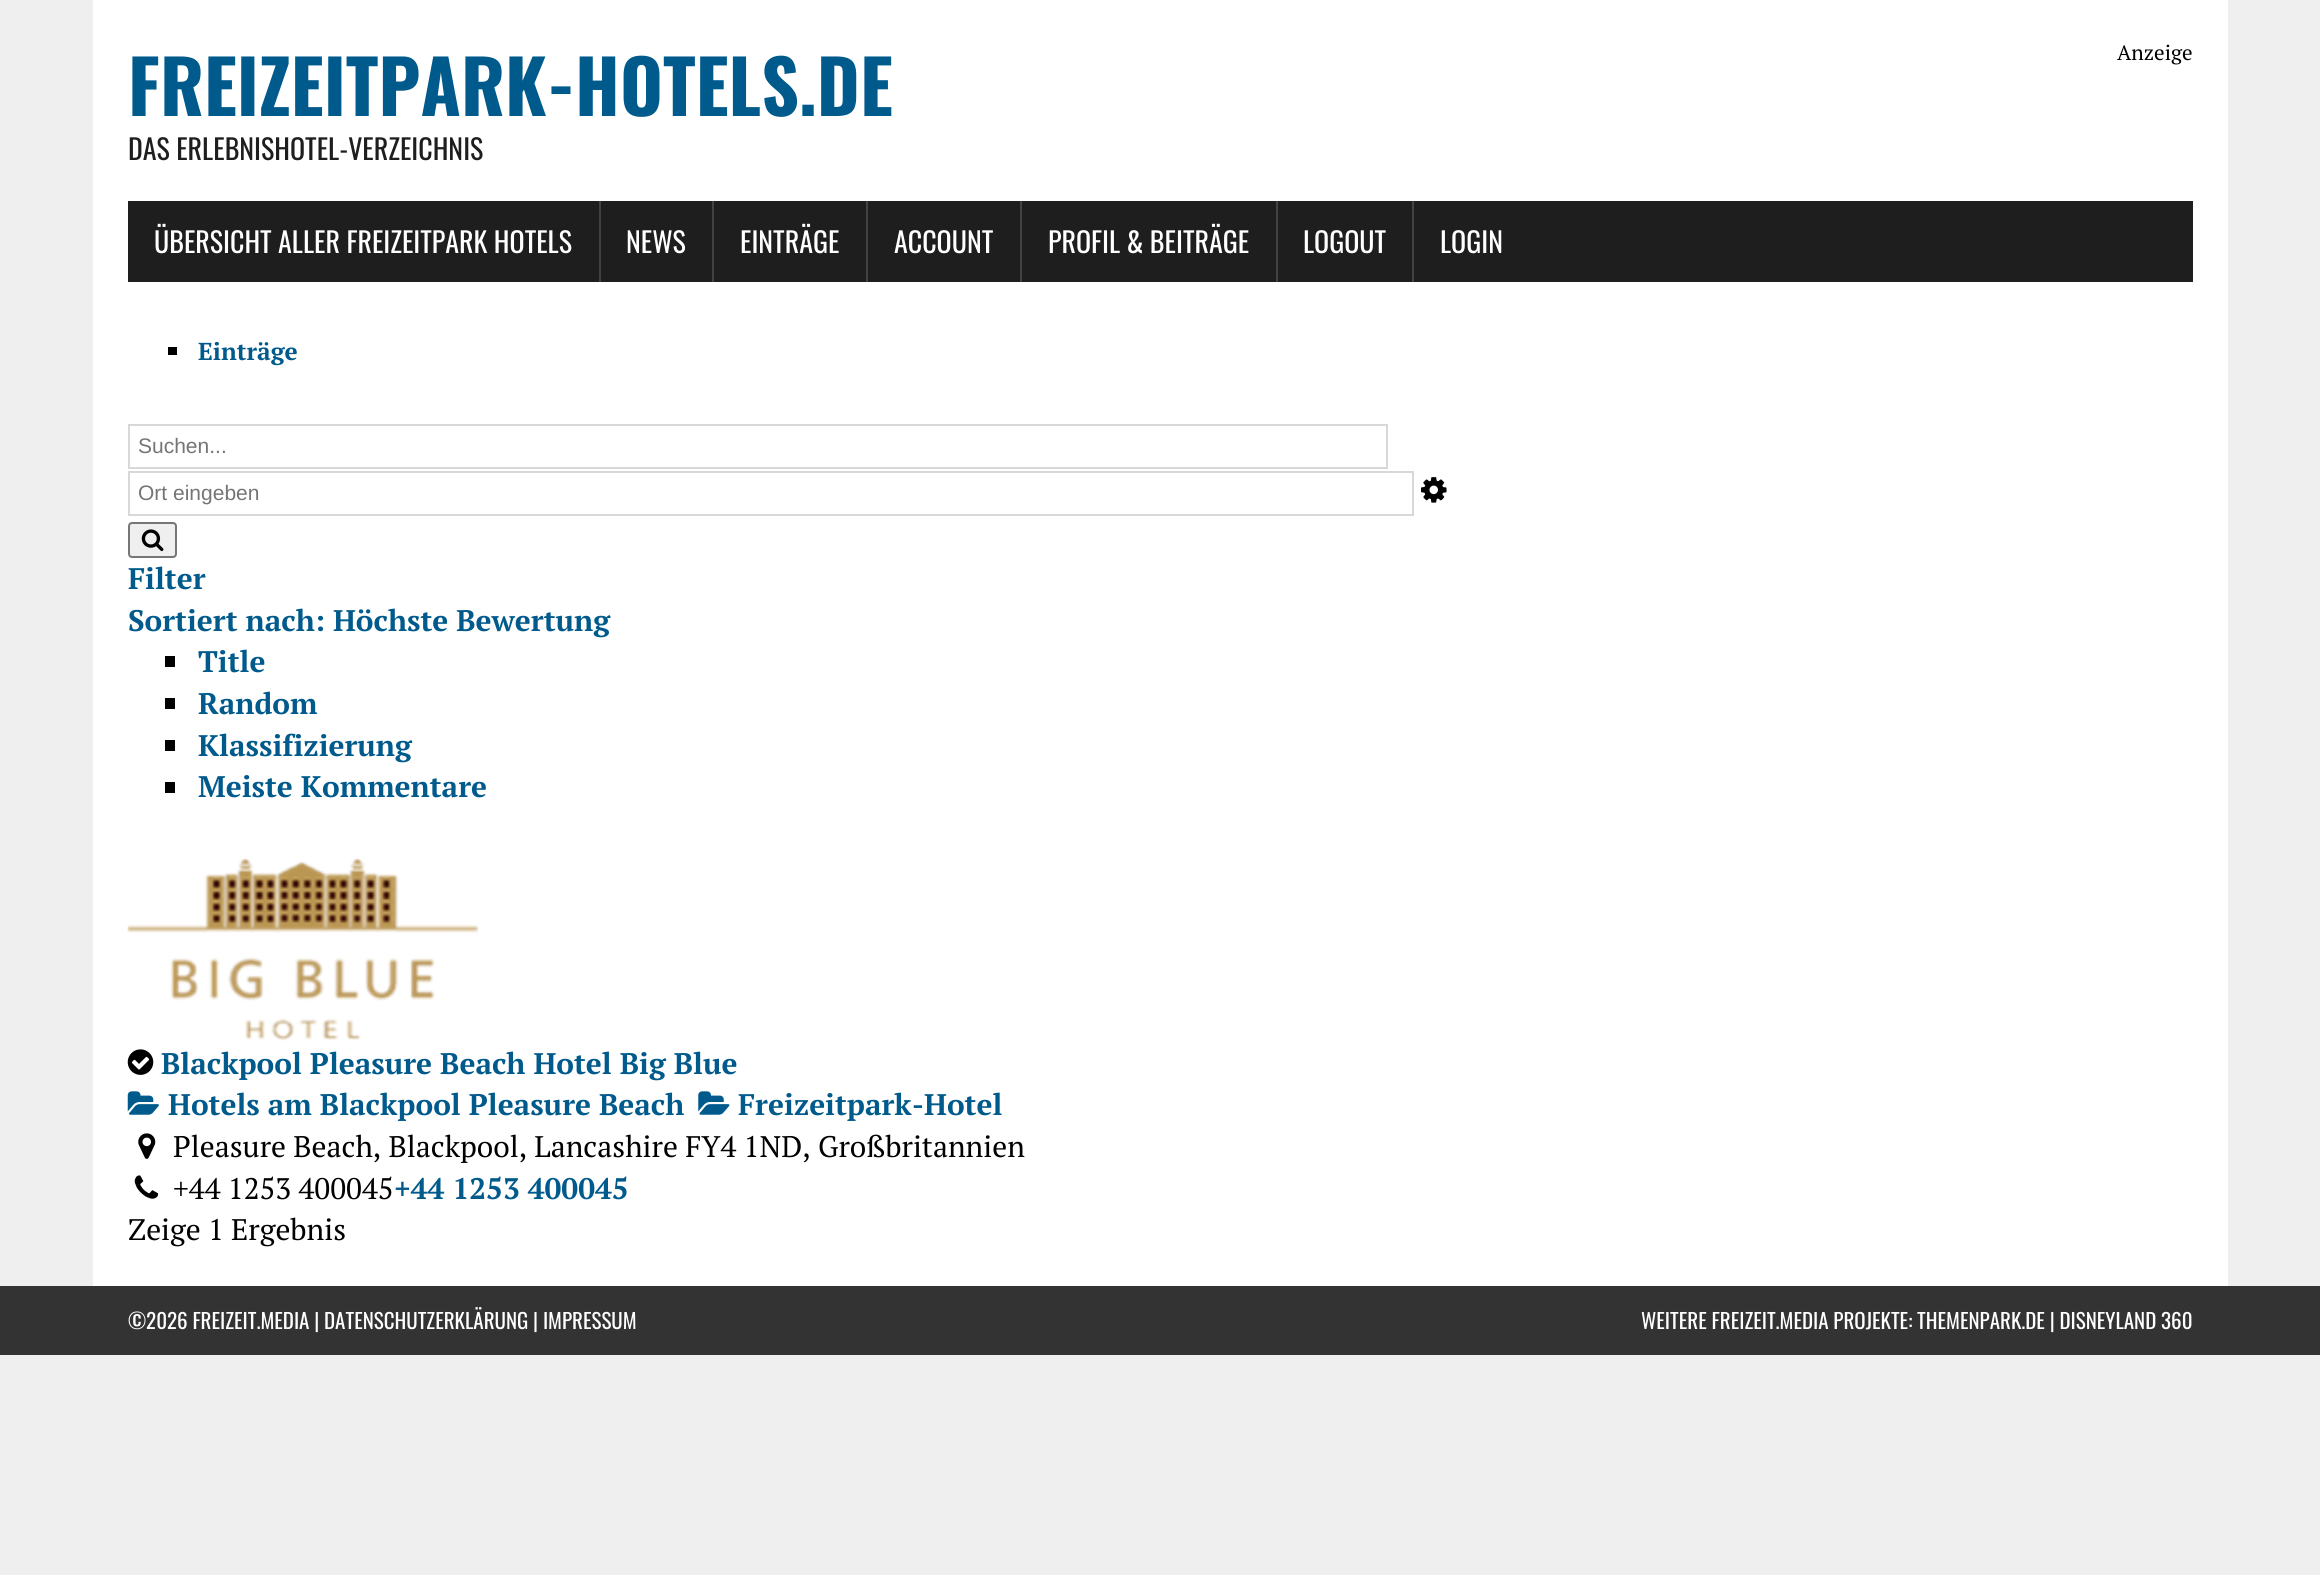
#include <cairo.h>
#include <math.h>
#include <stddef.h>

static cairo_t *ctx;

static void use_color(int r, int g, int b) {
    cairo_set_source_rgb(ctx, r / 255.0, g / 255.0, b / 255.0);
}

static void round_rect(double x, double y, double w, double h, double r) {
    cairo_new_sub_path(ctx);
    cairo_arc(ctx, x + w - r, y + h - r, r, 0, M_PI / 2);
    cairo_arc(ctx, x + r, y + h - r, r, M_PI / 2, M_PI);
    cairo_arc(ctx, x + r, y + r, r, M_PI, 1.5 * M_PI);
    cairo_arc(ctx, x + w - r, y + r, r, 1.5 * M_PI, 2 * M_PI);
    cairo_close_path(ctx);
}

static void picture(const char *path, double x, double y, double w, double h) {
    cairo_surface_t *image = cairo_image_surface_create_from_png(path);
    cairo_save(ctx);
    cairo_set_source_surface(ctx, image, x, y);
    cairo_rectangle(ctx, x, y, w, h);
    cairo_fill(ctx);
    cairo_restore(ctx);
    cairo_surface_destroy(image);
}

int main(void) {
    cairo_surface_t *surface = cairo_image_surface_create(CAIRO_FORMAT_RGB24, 2320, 1575);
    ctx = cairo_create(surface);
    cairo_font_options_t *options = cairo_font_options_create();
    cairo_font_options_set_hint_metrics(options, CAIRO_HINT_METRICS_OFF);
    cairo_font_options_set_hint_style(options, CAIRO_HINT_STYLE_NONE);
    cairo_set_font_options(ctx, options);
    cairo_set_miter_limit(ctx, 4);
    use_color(239, 239, 239);
    cairo_paint(ctx);
    use_color(255, 255, 255);
    cairo_rectangle(ctx, 93, 0, 2135, 1286);
    cairo_fill(ctx);
    cairo_select_font_face(ctx, "Oswald", CAIRO_FONT_SLANT_NORMAL, CAIRO_FONT_WEIGHT_BOLD);
    cairo_set_font_size(ctx, 73.5);
    use_color(0, 90, 140);
    cairo_move_to(ctx, 128, 116);
    cairo_show_text(ctx, "FREIZEITPARK-HOTELS.DE");
    cairo_select_font_face(ctx, "Oswald", CAIRO_FONT_SLANT_NORMAL, CAIRO_FONT_WEIGHT_NORMAL);
    cairo_set_font_size(ctx, 28);
    use_color(31, 30, 30);
    cairo_move_to(ctx, 128, 160);
    cairo_show_text(ctx, "DAS ERLEBNISHOTEL-VERZEICHNIS");
    cairo_select_font_face(ctx, "PT Serif", CAIRO_FONT_SLANT_NORMAL, CAIRO_FONT_WEIGHT_NORMAL);
    cairo_set_font_size(ctx, 21);
    use_color(0, 0, 0);
    cairo_move_to(ctx, 2117, 60);
    cairo_show_text(ctx, "Anzeige");
    use_color(31, 30, 30);
    cairo_rectangle(ctx, 128, 201, 2065, 81);
    cairo_fill(ctx);
    cairo_select_font_face(ctx, "Oswald", CAIRO_FONT_SLANT_NORMAL, CAIRO_FONT_WEIGHT_NORMAL);
    cairo_set_font_size(ctx, 28);
    use_color(255, 255, 255);
    cairo_move_to(ctx, 154, 253);
    cairo_show_text(ctx, "ÜBERSICHT ALLER FREIZEITPARK HOTELS");
    use_color(66, 66, 66);
    cairo_rectangle(ctx, 599, 201, 2, 81);
    cairo_fill(ctx);
    use_color(255, 255, 255);
    cairo_move_to(ctx, 626, 253);
    cairo_show_text(ctx, "NEWS");
    use_color(66, 66, 66);
    cairo_rectangle(ctx, 712, 201, 2, 81);
    cairo_fill(ctx);
    use_color(255, 255, 255);
    cairo_move_to(ctx, 740, 253);
    cairo_show_text(ctx, "EINTRÄGE");
    use_color(66, 66, 66);
    cairo_rectangle(ctx, 866, 201, 2, 81);
    cairo_fill(ctx);
    use_color(255, 255, 255);
    cairo_move_to(ctx, 894, 253);
    cairo_show_text(ctx, "ACCOUNT");
    use_color(66, 66, 66);
    cairo_rectangle(ctx, 1020, 201, 2, 81);
    cairo_fill(ctx);
    use_color(255, 255, 255);
    cairo_move_to(ctx, 1048, 253);
    cairo_show_text(ctx, "PROFIL & BEITRÄGE");
    use_color(66, 66, 66);
    cairo_rectangle(ctx, 1276, 201, 2, 81);
    cairo_fill(ctx);
    use_color(255, 255, 255);
    cairo_move_to(ctx, 1303, 253);
    cairo_show_text(ctx, "LOGOUT");
    use_color(66, 66, 66);
    cairo_rectangle(ctx, 1412, 201, 2, 81);
    cairo_fill(ctx);
    use_color(255, 255, 255);
    cairo_move_to(ctx, 1440, 253);
    cairo_show_text(ctx, "LOGIN");
    use_color(0, 0, 0);
    cairo_rectangle(ctx, 168, 347, 9, 8);
    cairo_fill(ctx);
    cairo_select_font_face(ctx, "PT Serif", CAIRO_FONT_SLANT_NORMAL, CAIRO_FONT_WEIGHT_BOLD);
    cairo_set_font_size(ctx, 24.5);
    use_color(0, 90, 140);
    cairo_move_to(ctx, 198, 360);
    cairo_show_text(ctx, "Einträge");
    cairo_rectangle(ctx, 129, 425, 1258, 43);
    use_color(215, 216, 216);
    cairo_stroke(ctx);
    cairo_select_font_face(ctx, "Liberation Sans", CAIRO_FONT_SLANT_NORMAL, CAIRO_FONT_WEIGHT_NORMAL);
    cairo_set_font_size(ctx, 21);
    use_color(117, 117, 117);
    cairo_move_to(ctx, 138, 453);
    cairo_show_text(ctx, "Suchen...");
    cairo_rectangle(ctx, 129, 472, 1284, 43);
    use_color(215, 216, 216);
    cairo_stroke(ctx);
    use_color(117, 117, 117);
    cairo_move_to(ctx, 138, 500);
    cairo_show_text(ctx, "Ort eingeben");
    picture("img1.png", 1421, 477, 26, 26);
    use_color(239, 239, 239);
    round_rect(129, 523, 47, 34, 3);
    cairo_fill_preserve(ctx);
    use_color(118, 118, 118);
    cairo_stroke(ctx);
    picture("img2.png", 141, 529, 23, 23);
    cairo_select_font_face(ctx, "PT Serif", CAIRO_FONT_SLANT_NORMAL, CAIRO_FONT_WEIGHT_BOLD);
    cairo_set_font_size(ctx, 29.75);
    use_color(0, 90, 140);
    cairo_move_to(ctx, 128, 589);
    cairo_show_text(ctx, "Filter");
    cairo_move_to(ctx, 128, 631);
    cairo_show_text(ctx, "Sortiert nach: Höchste Bewertung");
    use_color(0, 0, 0);
    cairo_rectangle(ctx, 165, 656, 10, 11);
    cairo_fill(ctx);
    use_color(0, 90, 140);
    cairo_move_to(ctx, 198, 672);
    cairo_show_text(ctx, "Title");
    use_color(0, 0, 0);
    cairo_rectangle(ctx, 165, 698, 10, 11);
    cairo_fill(ctx);
    use_color(0, 90, 140);
    cairo_move_to(ctx, 198, 714);
    cairo_show_text(ctx, "Random");
    use_color(0, 0, 0);
    cairo_rectangle(ctx, 165, 740, 10, 11);
    cairo_fill(ctx);
    use_color(0, 90, 140);
    cairo_move_to(ctx, 198, 756);
    cairo_show_text(ctx, "Klassifizierung");
    use_color(0, 0, 0);
    cairo_rectangle(ctx, 165, 782, 10, 11);
    cairo_fill(ctx);
    use_color(0, 90, 140);
    cairo_move_to(ctx, 198, 797);
    cairo_show_text(ctx, "Meiste Kommentare");
    picture("img3.png", 127, 859, 351, 182);
    picture("img4.png", 127, 1049, 27, 26);
    cairo_move_to(ctx, 161, 1074);
    cairo_show_text(ctx, "Blackpool Pleasure Beach Hotel Big Blue");
    picture("img5.png", 127, 1091, 32, 24);
    cairo_move_to(ctx, 168, 1115);
    cairo_show_text(ctx, "Hotels am Blackpool Pleasure Beach");
    picture("img6.png", 698, 1091, 32, 24);
    cairo_move_to(ctx, 738, 1115);
    cairo_show_text(ctx, "Freizeitpark-Hotel");
    picture("img7.png", 138, 1133, 18, 26);
    cairo_select_font_face(ctx, "PT Serif", CAIRO_FONT_SLANT_NORMAL, CAIRO_FONT_WEIGHT_NORMAL);
    use_color(0, 0, 0);
    cairo_move_to(ctx, 173, 1157);
    cairo_show_text(ctx, "Pleasure Beach, Blackpool, Lancashire FY4 1ND, Großbritannien");
    picture("img8.png", 134, 1175, 25, 24);
    cairo_move_to(ctx, 173, 1199);
    cairo_show_text(ctx, "+44 1253 400045");
    cairo_select_font_face(ctx, "PT Serif", CAIRO_FONT_SLANT_NORMAL, CAIRO_FONT_WEIGHT_BOLD);
    use_color(0, 90, 140);
    cairo_move_to(ctx, 394, 1199);
    cairo_show_text(ctx, "+44 1253 400045");
    cairo_select_font_face(ctx, "PT Serif", CAIRO_FONT_SLANT_NORMAL, CAIRO_FONT_WEIGHT_NORMAL);
    use_color(0, 0, 0);
    cairo_move_to(ctx, 128, 1240);
    cairo_show_text(ctx, "Zeige 1 Ergebnis");
    use_color(51, 51, 51);
    cairo_rectangle(ctx, 0, 1286, 2320, 69);
    cairo_fill(ctx);
    cairo_select_font_face(ctx, "Oswald", CAIRO_FONT_SLANT_NORMAL, CAIRO_FONT_WEIGHT_NORMAL);
    cairo_set_font_size(ctx, 21);
    use_color(255, 255, 255);
    cairo_move_to(ctx, 128, 1329);
    cairo_show_text(ctx, "©2026 FREIZEIT.MEDIA | DATENSCHUTZERKLÄRUNG | IMPRESSUM");
    cairo_move_to(ctx, 1641, 1329);
    cairo_show_text(ctx, "WEITERE FREIZEIT.MEDIA PROJEKTE: THEMENPARK.DE | DISNEYLAND 360");
    cairo_surface_write_to_png(surface, "result.png");
    cairo_font_options_destroy(options);
    cairo_destroy(ctx);
    cairo_surface_destroy(surface);
    return 0;
}
